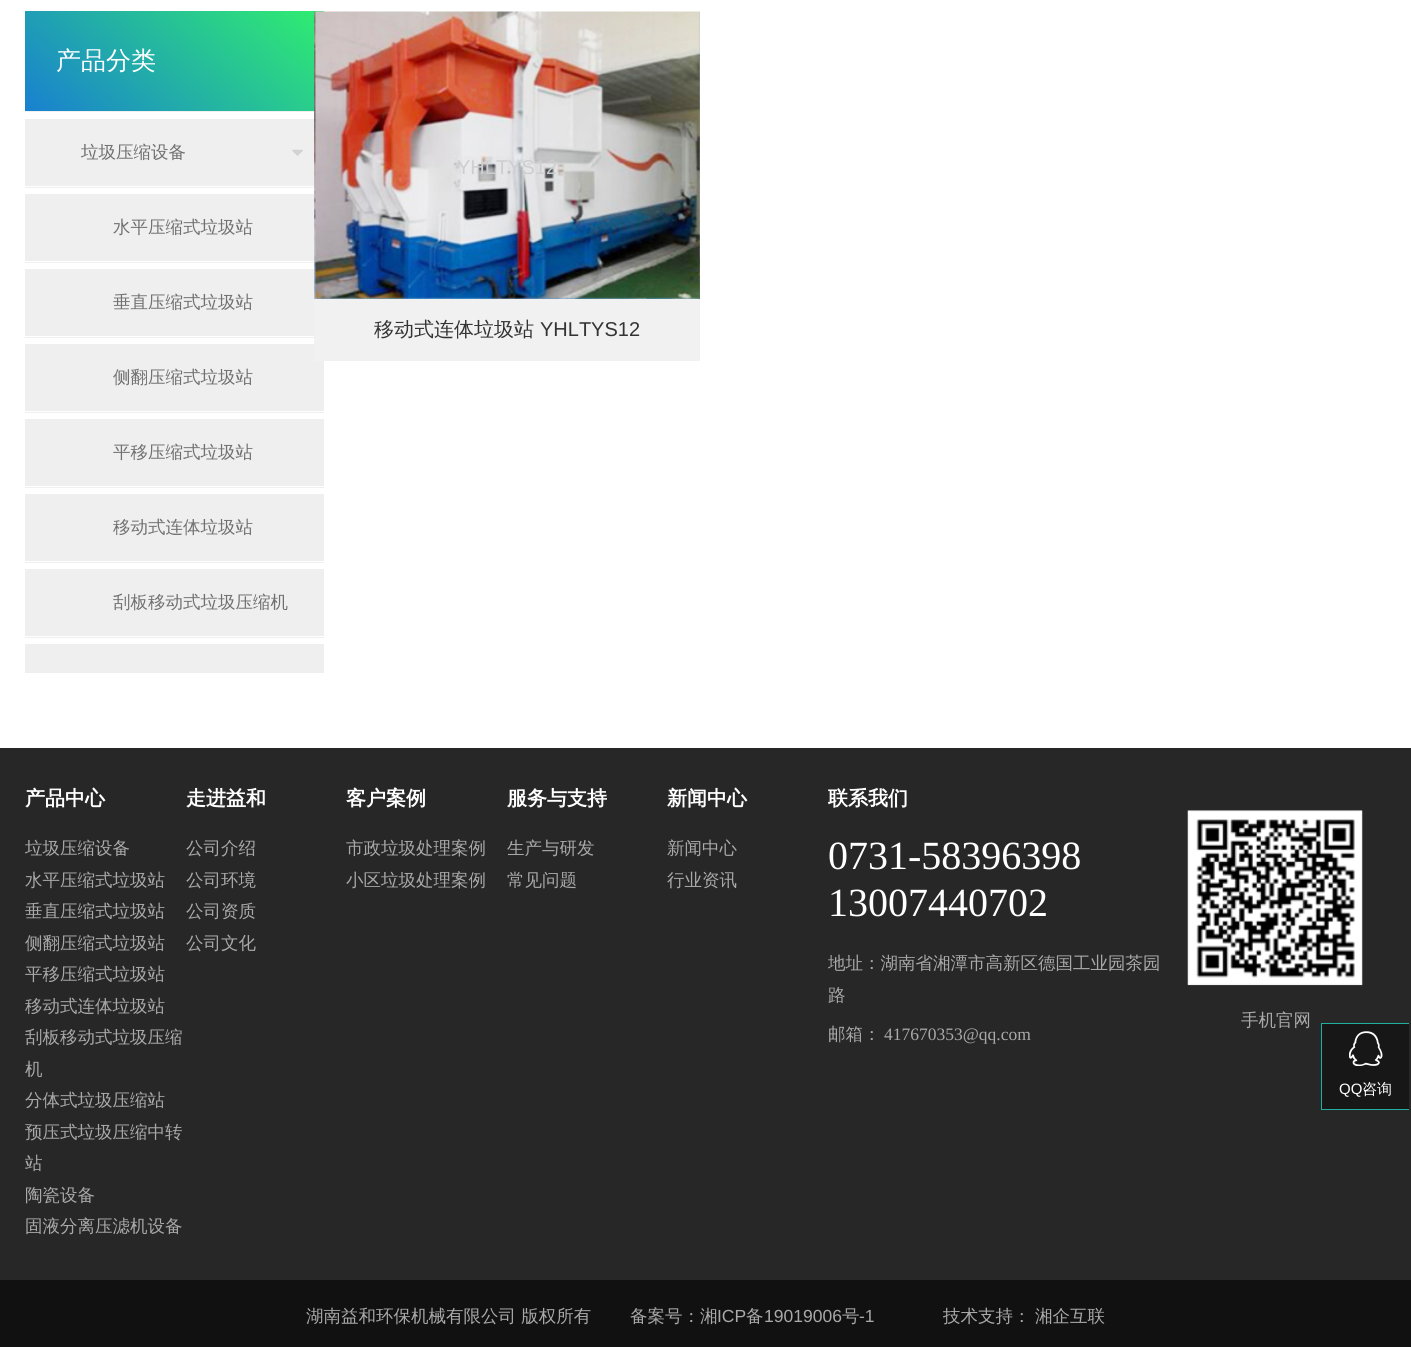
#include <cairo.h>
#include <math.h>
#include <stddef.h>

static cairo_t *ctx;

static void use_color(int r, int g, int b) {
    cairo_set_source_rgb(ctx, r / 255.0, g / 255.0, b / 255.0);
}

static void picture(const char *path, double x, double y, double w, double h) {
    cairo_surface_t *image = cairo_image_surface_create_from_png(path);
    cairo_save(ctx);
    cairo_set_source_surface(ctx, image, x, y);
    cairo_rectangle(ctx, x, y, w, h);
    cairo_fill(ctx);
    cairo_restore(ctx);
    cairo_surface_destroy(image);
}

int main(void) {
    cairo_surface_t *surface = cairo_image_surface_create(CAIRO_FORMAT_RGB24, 1411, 1347);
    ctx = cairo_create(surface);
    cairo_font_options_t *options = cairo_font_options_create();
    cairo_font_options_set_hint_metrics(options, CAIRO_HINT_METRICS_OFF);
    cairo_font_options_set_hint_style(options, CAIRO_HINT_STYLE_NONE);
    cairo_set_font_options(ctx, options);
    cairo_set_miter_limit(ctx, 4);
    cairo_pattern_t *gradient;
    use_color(255, 255, 255);
    cairo_paint(ctx);
    gradient = cairo_pattern_create_linear(83, 163, 266, -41);
    cairo_pattern_add_color_stop_rgba(gradient, 0, 0.098, 0.502, 0.816, 1);
    cairo_pattern_add_color_stop_rgba(gradient, 1, 0.188, 0.933, 0.435, 1);
    cairo_set_source(ctx, gradient);
    cairo_pattern_destroy(gradient);
    cairo_rectangle(ctx, 25, 11, 299, 100);
    cairo_fill(ctx);
    cairo_select_font_face(ctx, "WenQuanYi Zen Hei Medium", CAIRO_FONT_SLANT_NORMAL, CAIRO_FONT_WEIGHT_NORMAL);
    cairo_set_font_size(ctx, 25);
    use_color(255, 255, 255);
    cairo_move_to(ctx, 56, 69);
    cairo_show_text(ctx, "产品分类");
    use_color(240, 240, 240);
    cairo_rectangle(ctx, 25, 111, 290, 1);
    cairo_fill(ctx);
    use_color(239, 239, 239);
    cairo_rectangle(ctx, 25, 119, 290, 69);
    cairo_fill(ctx);
    use_color(255, 255, 255);
    cairo_rectangle(ctx, 25, 186, 290, 1);
    cairo_fill(ctx);
    cairo_set_font_size(ctx, 17.5);
    use_color(112, 112, 112);
    cairo_move_to(ctx, 81, 158);
    cairo_show_text(ctx, "垃圾压缩设备");
    picture("img1.png", 292, 149, 11, 7);
    use_color(239, 239, 239);
    cairo_rectangle(ctx, 25, 194, 290, 69);
    cairo_fill(ctx);
    use_color(255, 255, 255);
    cairo_rectangle(ctx, 25, 261, 290, 1);
    cairo_fill(ctx);
    use_color(112, 112, 112);
    cairo_move_to(ctx, 113, 233);
    cairo_show_text(ctx, "水平压缩式垃圾站");
    use_color(239, 239, 239);
    cairo_rectangle(ctx, 25, 269, 290, 69);
    cairo_fill(ctx);
    use_color(255, 255, 255);
    cairo_rectangle(ctx, 25, 336, 289, 1);
    cairo_fill(ctx);
    use_color(112, 112, 112);
    cairo_move_to(ctx, 113, 308);
    cairo_show_text(ctx, "垂直压缩式垃圾站");
    use_color(239, 239, 239);
    cairo_rectangle(ctx, 25, 344, 299, 69);
    cairo_fill(ctx);
    use_color(255, 255, 255);
    cairo_rectangle(ctx, 25, 411, 299, 1);
    cairo_fill(ctx);
    use_color(112, 112, 112);
    cairo_move_to(ctx, 113, 383);
    cairo_show_text(ctx, "侧翻压缩式垃圾站");
    use_color(239, 239, 239);
    cairo_rectangle(ctx, 25, 419, 299, 69);
    cairo_fill(ctx);
    use_color(255, 255, 255);
    cairo_rectangle(ctx, 25, 486, 299, 1);
    cairo_fill(ctx);
    use_color(112, 112, 112);
    cairo_move_to(ctx, 113, 458);
    cairo_show_text(ctx, "平移压缩式垃圾站");
    use_color(239, 239, 239);
    cairo_rectangle(ctx, 25, 494, 299, 69);
    cairo_fill(ctx);
    use_color(255, 255, 255);
    cairo_rectangle(ctx, 25, 561, 299, 1);
    cairo_fill(ctx);
    use_color(112, 112, 112);
    cairo_move_to(ctx, 113, 533);
    cairo_show_text(ctx, "移动式连体垃圾站");
    use_color(239, 239, 239);
    cairo_rectangle(ctx, 25, 569, 299, 69);
    cairo_fill(ctx);
    use_color(255, 255, 255);
    cairo_rectangle(ctx, 25, 636, 299, 1);
    cairo_fill(ctx);
    use_color(112, 112, 112);
    cairo_move_to(ctx, 113, 608);
    cairo_show_text(ctx, "刮板移动式垃圾压缩机");
    use_color(239, 239, 239);
    cairo_rectangle(ctx, 25, 644, 299, 29);
    cairo_fill(ctx);
    picture("img2.png", 314, 11, 386, 288);
    cairo_select_font_face(ctx, "Liberation Sans", CAIRO_FONT_SLANT_NORMAL, CAIRO_FONT_WEIGHT_NORMAL);
    cairo_set_font_size(ctx, 20);
    use_color(206, 206, 208);
    cairo_move_to(ctx, 457, 174);
    cairo_show_text(ctx, "YHLTYS12");
    use_color(241, 241, 241);
    cairo_rectangle(ctx, 314, 299, 386, 62);
    cairo_fill(ctx);
    cairo_select_font_face(ctx, "WenQuanYi Zen Hei Medium", CAIRO_FONT_SLANT_NORMAL, CAIRO_FONT_WEIGHT_NORMAL);
    use_color(51, 51, 51);
    cairo_move_to(ctx, 374, 336);
    cairo_show_text(ctx, "移动式连体垃圾站");
    cairo_select_font_face(ctx, "Liberation Sans", CAIRO_FONT_SLANT_NORMAL, CAIRO_FONT_WEIGHT_NORMAL);
    cairo_move_to(ctx, 540, 336);
    cairo_show_text(ctx, "YHLTYS12");
    use_color(39, 39, 39);
    cairo_rectangle(ctx, 0, 748, 1411, 532);
    cairo_fill(ctx);
    cairo_select_font_face(ctx, "WenQuanYi Zen Hei", CAIRO_FONT_SLANT_NORMAL, CAIRO_FONT_WEIGHT_BOLD);
    use_color(255, 255, 255);
    cairo_move_to(ctx, 25, 805);
    cairo_show_text(ctx, "产品中心");
    cairo_select_font_face(ctx, "WenQuanYi Zen Hei Medium", CAIRO_FONT_SLANT_NORMAL, CAIRO_FONT_WEIGHT_NORMAL);
    cairo_set_font_size(ctx, 17.5);
    use_color(169, 169, 169);
    cairo_move_to(ctx, 25, 854);
    cairo_show_text(ctx, "垃圾压缩设备");
    cairo_move_to(ctx, 25, 886);
    cairo_show_text(ctx, "水平压缩式垃圾站");
    cairo_move_to(ctx, 25, 917);
    cairo_show_text(ctx, "垂直压缩式垃圾站");
    cairo_move_to(ctx, 25, 949);
    cairo_show_text(ctx, "侧翻压缩式垃圾站");
    cairo_move_to(ctx, 25, 980);
    cairo_show_text(ctx, "平移压缩式垃圾站");
    cairo_move_to(ctx, 25, 1012);
    cairo_show_text(ctx, "移动式连体垃圾站");
    cairo_move_to(ctx, 25, 1043);
    cairo_show_text(ctx, "刮板移动式垃圾压缩");
    cairo_move_to(ctx, 25, 1075);
    cairo_show_text(ctx, "机");
    cairo_move_to(ctx, 25, 1106);
    cairo_show_text(ctx, "分体式垃圾压缩站");
    cairo_move_to(ctx, 25, 1138);
    cairo_show_text(ctx, "预压式垃圾压缩中转");
    cairo_move_to(ctx, 25, 1169);
    cairo_show_text(ctx, "站");
    cairo_move_to(ctx, 25, 1201);
    cairo_show_text(ctx, "陶瓷设备");
    cairo_move_to(ctx, 25, 1232);
    cairo_show_text(ctx, "固液分离压滤机设备");
    cairo_select_font_face(ctx, "WenQuanYi Zen Hei", CAIRO_FONT_SLANT_NORMAL, CAIRO_FONT_WEIGHT_BOLD);
    cairo_set_font_size(ctx, 20);
    use_color(255, 255, 255);
    cairo_move_to(ctx, 186, 805);
    cairo_show_text(ctx, "走进益和");
    cairo_select_font_face(ctx, "WenQuanYi Zen Hei Medium", CAIRO_FONT_SLANT_NORMAL, CAIRO_FONT_WEIGHT_NORMAL);
    cairo_set_font_size(ctx, 17.5);
    use_color(169, 169, 169);
    cairo_move_to(ctx, 186, 854);
    cairo_show_text(ctx, "公司介绍");
    cairo_move_to(ctx, 186, 886);
    cairo_show_text(ctx, "公司环境");
    cairo_move_to(ctx, 186, 917);
    cairo_show_text(ctx, "公司资质");
    cairo_move_to(ctx, 186, 949);
    cairo_show_text(ctx, "公司文化");
    cairo_select_font_face(ctx, "WenQuanYi Zen Hei", CAIRO_FONT_SLANT_NORMAL, CAIRO_FONT_WEIGHT_BOLD);
    cairo_set_font_size(ctx, 20);
    use_color(255, 255, 255);
    cairo_move_to(ctx, 346, 805);
    cairo_show_text(ctx, "客户案例");
    cairo_select_font_face(ctx, "WenQuanYi Zen Hei Medium", CAIRO_FONT_SLANT_NORMAL, CAIRO_FONT_WEIGHT_NORMAL);
    cairo_set_font_size(ctx, 17.5);
    use_color(169, 169, 169);
    cairo_move_to(ctx, 346, 854);
    cairo_show_text(ctx, "市政垃圾处理案例");
    cairo_move_to(ctx, 346, 886);
    cairo_show_text(ctx, "小区垃圾处理案例");
    cairo_select_font_face(ctx, "WenQuanYi Zen Hei", CAIRO_FONT_SLANT_NORMAL, CAIRO_FONT_WEIGHT_BOLD);
    cairo_set_font_size(ctx, 20);
    use_color(255, 255, 255);
    cairo_move_to(ctx, 507, 805);
    cairo_show_text(ctx, "服务与支持");
    cairo_select_font_face(ctx, "WenQuanYi Zen Hei Medium", CAIRO_FONT_SLANT_NORMAL, CAIRO_FONT_WEIGHT_NORMAL);
    cairo_set_font_size(ctx, 17.5);
    use_color(169, 169, 169);
    cairo_move_to(ctx, 507, 854);
    cairo_show_text(ctx, "生产与研发");
    cairo_move_to(ctx, 507, 886);
    cairo_show_text(ctx, "常见问题");
    cairo_select_font_face(ctx, "WenQuanYi Zen Hei", CAIRO_FONT_SLANT_NORMAL, CAIRO_FONT_WEIGHT_BOLD);
    cairo_set_font_size(ctx, 20);
    use_color(255, 255, 255);
    cairo_move_to(ctx, 667, 805);
    cairo_show_text(ctx, "新闻中心");
    cairo_select_font_face(ctx, "WenQuanYi Zen Hei Medium", CAIRO_FONT_SLANT_NORMAL, CAIRO_FONT_WEIGHT_NORMAL);
    cairo_set_font_size(ctx, 17.5);
    use_color(169, 169, 169);
    cairo_move_to(ctx, 667, 854);
    cairo_show_text(ctx, "新闻中心");
    cairo_move_to(ctx, 667, 886);
    cairo_show_text(ctx, "行业资讯");
    cairo_select_font_face(ctx, "WenQuanYi Zen Hei", CAIRO_FONT_SLANT_NORMAL, CAIRO_FONT_WEIGHT_BOLD);
    cairo_set_font_size(ctx, 20);
    use_color(255, 255, 255);
    cairo_move_to(ctx, 828, 805);
    cairo_show_text(ctx, "联系我们");
    cairo_select_font_face(ctx, "Liberation Serif", CAIRO_FONT_SLANT_NORMAL, CAIRO_FONT_WEIGHT_NORMAL);
    cairo_set_font_size(ctx, 40);
    cairo_move_to(ctx, 828, 869);
    cairo_show_text(ctx, "0731-58396398");
    cairo_move_to(ctx, 828, 916);
    cairo_show_text(ctx, "13007440702");
    cairo_save(ctx);
    cairo_rectangle(ctx, 828, 785, 337, 263);
    cairo_clip(ctx);
    cairo_select_font_face(ctx, "WenQuanYi Zen Hei Medium", CAIRO_FONT_SLANT_NORMAL, CAIRO_FONT_WEIGHT_NORMAL);
    cairo_set_font_size(ctx, 17.5);
    use_color(169, 169, 169);
    cairo_move_to(ctx, 828, 969);
    cairo_show_text(ctx, "地址：湖南省湘潭市高新区德国工业园茶园");
    cairo_restore(ctx);
    cairo_select_font_face(ctx, "WenQuanYi Zen Hei Medium", CAIRO_FONT_SLANT_NORMAL, CAIRO_FONT_WEIGHT_NORMAL);
    cairo_set_font_size(ctx, 17.5);
    use_color(169, 169, 169);
    cairo_move_to(ctx, 828, 1001);
    cairo_show_text(ctx, "路");
    cairo_move_to(ctx, 828, 1040);
    cairo_show_text(ctx, "邮箱：");
    cairo_select_font_face(ctx, "Liberation Serif", CAIRO_FONT_SLANT_NORMAL, CAIRO_FONT_WEIGHT_NORMAL);
    cairo_move_to(ctx, 884, 1040);
    cairo_show_text(ctx, "417670353@qq.com");
    picture("img3.png", 1187, 810, 176, 176);
    cairo_select_font_face(ctx, "WenQuanYi Zen Hei Medium", CAIRO_FONT_SLANT_NORMAL, CAIRO_FONT_WEIGHT_NORMAL);
    cairo_move_to(ctx, 1241, 1026);
    cairo_show_text(ctx, "手机官网");
    use_color(17, 17, 17);
    cairo_rectangle(ctx, 0, 1280, 1411, 67);
    cairo_fill(ctx);
    use_color(169, 169, 169);
    cairo_move_to(ctx, 306, 1322);
    cairo_show_text(ctx, "湖南益和环保机械有限公司 版权所有");
    cairo_move_to(ctx, 630, 1322);
    cairo_show_text(ctx, "备案号：湘");
    cairo_select_font_face(ctx, "Liberation Sans", CAIRO_FONT_SLANT_NORMAL, CAIRO_FONT_WEIGHT_NORMAL);
    cairo_move_to(ctx, 717, 1322);
    cairo_show_text(ctx, "ICP");
    cairo_select_font_face(ctx, "WenQuanYi Zen Hei Medium", CAIRO_FONT_SLANT_NORMAL, CAIRO_FONT_WEIGHT_NORMAL);
    cairo_move_to(ctx, 746, 1322);
    cairo_show_text(ctx, "备");
    cairo_select_font_face(ctx, "Liberation Sans", CAIRO_FONT_SLANT_NORMAL, CAIRO_FONT_WEIGHT_NORMAL);
    cairo_move_to(ctx, 764, 1322);
    cairo_show_text(ctx, "19019006");
    cairo_select_font_face(ctx, "WenQuanYi Zen Hei Medium", CAIRO_FONT_SLANT_NORMAL, CAIRO_FONT_WEIGHT_NORMAL);
    cairo_move_to(ctx, 842, 1322);
    cairo_show_text(ctx, "号");
    cairo_select_font_face(ctx, "Liberation Sans", CAIRO_FONT_SLANT_NORMAL, CAIRO_FONT_WEIGHT_NORMAL);
    cairo_move_to(ctx, 859, 1322);
    cairo_show_text(ctx, "-1");
    cairo_select_font_face(ctx, "WenQuanYi Zen Hei Medium", CAIRO_FONT_SLANT_NORMAL, CAIRO_FONT_WEIGHT_NORMAL);
    cairo_move_to(ctx, 943, 1322);
    cairo_show_text(ctx, "技术支持：");
    cairo_move_to(ctx, 1035, 1322);
    cairo_show_text(ctx, "湘企互联");
    use_color(23, 23, 23);
    cairo_rectangle(ctx, 1322, 1024, 87, 85);
    cairo_fill(ctx);
    use_color(32, 176, 159);
    cairo_rectangle(ctx, 1321, 1023, 88, 1);
    cairo_fill(ctx);
    cairo_rectangle(ctx, 1321, 1109, 88, 1);
    cairo_fill(ctx);
    cairo_rectangle(ctx, 1321, 1023, 1, 87);
    cairo_fill(ctx);
    picture("img4.png", 1349, 1031, 34, 35);
    cairo_select_font_face(ctx, "Liberation Sans", CAIRO_FONT_SLANT_NORMAL, CAIRO_FONT_WEIGHT_NORMAL);
    cairo_set_font_size(ctx, 15);
    use_color(255, 255, 255);
    cairo_move_to(ctx, 1339, 1094);
    cairo_show_text(ctx, "QQ");
    cairo_select_font_face(ctx, "WenQuanYi Zen Hei Medium", CAIRO_FONT_SLANT_NORMAL, CAIRO_FONT_WEIGHT_NORMAL);
    cairo_move_to(ctx, 1362, 1094);
    cairo_show_text(ctx, "咨询");
    cairo_surface_write_to_png(surface, "result.png");
    cairo_font_options_destroy(options);
    cairo_destroy(ctx);
    cairo_surface_destroy(surface);
    return 0;
}
